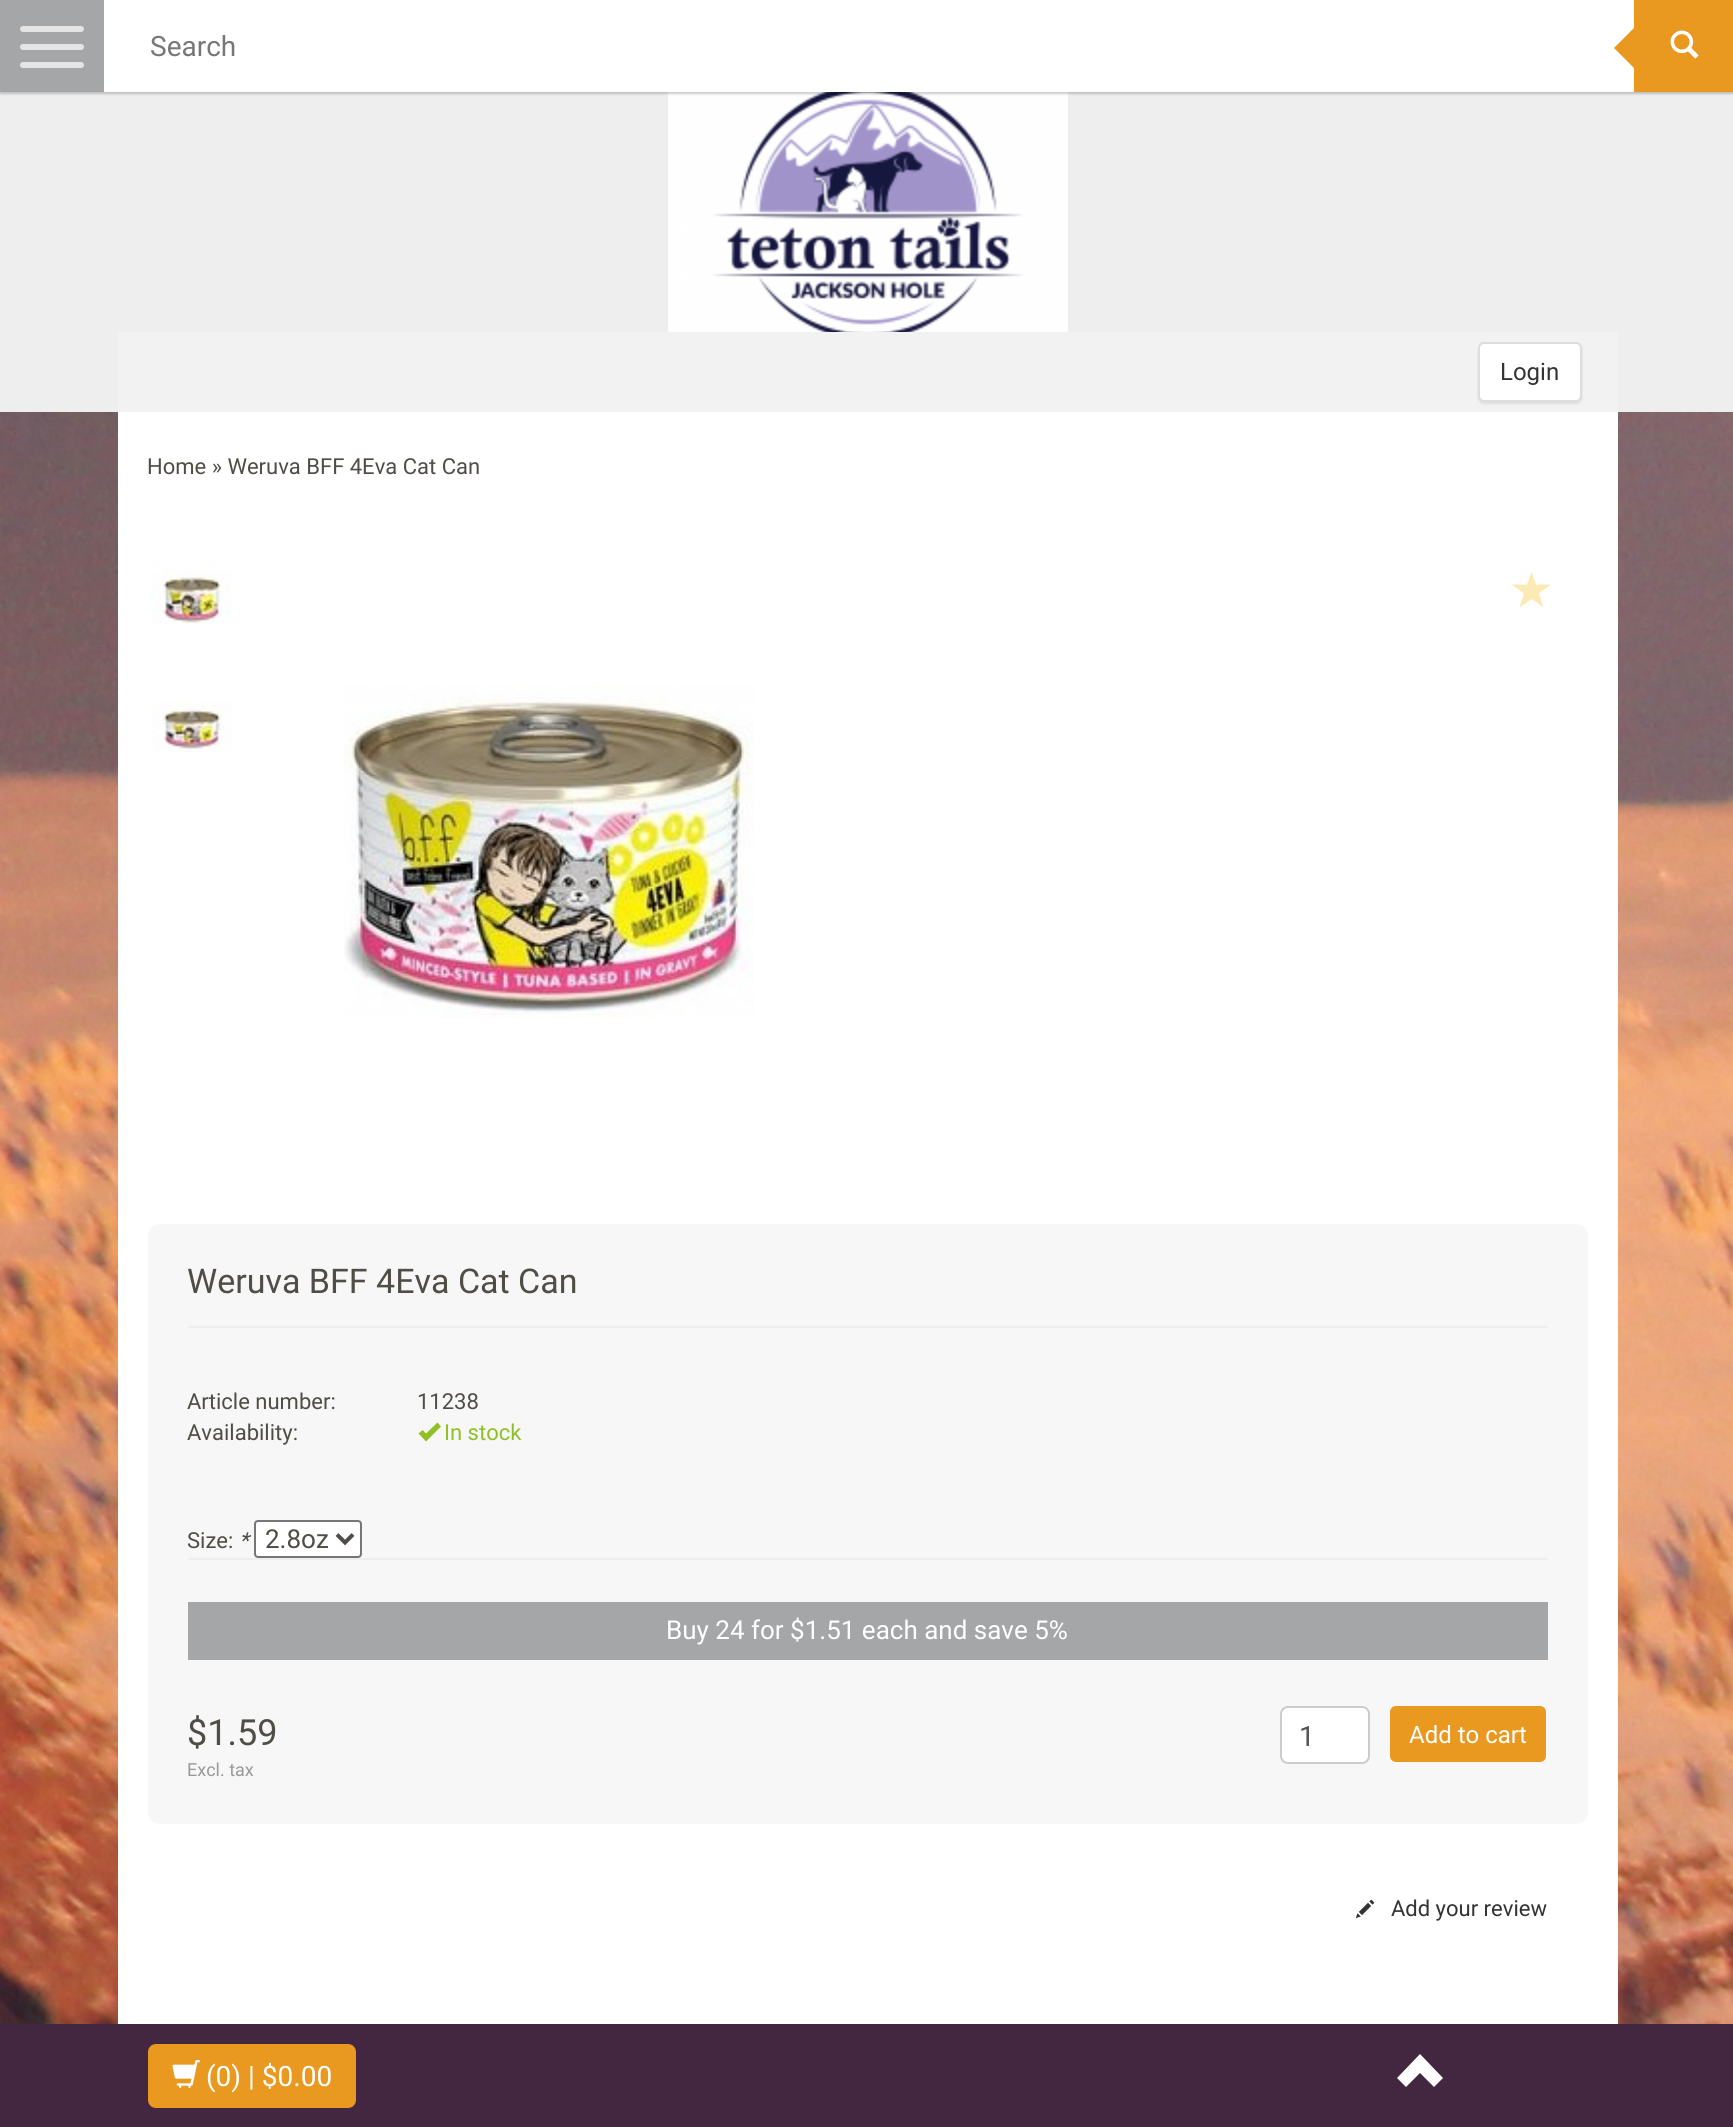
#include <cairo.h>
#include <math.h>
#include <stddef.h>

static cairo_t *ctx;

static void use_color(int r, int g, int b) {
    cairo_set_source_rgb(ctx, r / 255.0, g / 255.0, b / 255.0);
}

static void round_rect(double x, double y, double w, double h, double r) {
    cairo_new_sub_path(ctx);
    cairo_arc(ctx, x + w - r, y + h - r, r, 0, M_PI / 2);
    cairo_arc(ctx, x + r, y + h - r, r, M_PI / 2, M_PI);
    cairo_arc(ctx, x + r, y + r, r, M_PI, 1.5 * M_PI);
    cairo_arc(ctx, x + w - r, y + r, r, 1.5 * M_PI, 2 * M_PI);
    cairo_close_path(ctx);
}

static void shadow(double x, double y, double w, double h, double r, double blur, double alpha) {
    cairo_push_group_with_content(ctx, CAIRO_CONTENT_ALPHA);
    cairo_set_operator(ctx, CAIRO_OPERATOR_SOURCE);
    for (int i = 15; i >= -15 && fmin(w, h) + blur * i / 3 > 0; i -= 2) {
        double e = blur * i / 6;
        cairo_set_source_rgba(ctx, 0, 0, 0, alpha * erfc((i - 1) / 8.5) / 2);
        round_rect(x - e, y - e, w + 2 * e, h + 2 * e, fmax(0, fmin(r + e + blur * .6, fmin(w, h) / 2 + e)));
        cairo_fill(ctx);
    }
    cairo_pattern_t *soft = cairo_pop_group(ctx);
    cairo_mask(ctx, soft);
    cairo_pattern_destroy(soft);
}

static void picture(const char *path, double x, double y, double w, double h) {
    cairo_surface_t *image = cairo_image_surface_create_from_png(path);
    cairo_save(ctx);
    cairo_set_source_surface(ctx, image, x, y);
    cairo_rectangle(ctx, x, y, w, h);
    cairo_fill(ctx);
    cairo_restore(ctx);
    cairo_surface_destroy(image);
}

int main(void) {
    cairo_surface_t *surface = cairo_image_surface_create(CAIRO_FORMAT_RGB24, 1733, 2127);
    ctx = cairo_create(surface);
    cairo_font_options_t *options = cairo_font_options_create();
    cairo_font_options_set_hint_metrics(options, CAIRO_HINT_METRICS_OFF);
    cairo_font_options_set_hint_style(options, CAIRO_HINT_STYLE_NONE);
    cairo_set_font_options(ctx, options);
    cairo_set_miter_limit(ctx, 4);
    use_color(255, 255, 255);
    cairo_paint(ctx);
    picture("img1.png", 0, 412, 1733, 1612);
    use_color(238, 238, 238);
    cairo_rectangle(ctx, 0, 92, 1733, 320);
    cairo_fill(ctx);
    picture("img3.png", 668, 92, 400, 240);
    use_color(0, 0, 0);
    shadow(0, 2, 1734, 92, 0, 1, 0.2);
    use_color(165, 166, 168);
    cairo_rectangle(ctx, 0, 0, 104, 92);
    cairo_fill(ctx);
    use_color(229, 229, 229);
    round_rect(20, 26, 64, 6, 3);
    cairo_fill(ctx);
    round_rect(20, 44, 64, 6, 3);
    cairo_fill(ctx);
    round_rect(20, 62, 64, 6, 3);
    cairo_fill(ctx);
    use_color(255, 255, 255);
    cairo_rectangle(ctx, 104, 0, 1530, 92);
    cairo_fill(ctx);
    cairo_select_font_face(ctx, "Roboto", CAIRO_FONT_SLANT_NORMAL, CAIRO_FONT_WEIGHT_NORMAL);
    cairo_set_font_size(ctx, 28);
    use_color(119, 119, 119);
    cairo_move_to(ctx, 150, 56);
    cairo_show_text(ctx, "Search");
    use_color(233, 152, 32);
    cairo_rectangle(ctx, 1634, 0, 99, 92);
    cairo_fill(ctx);
    cairo_new_path(ctx);
    cairo_move_to(ctx, 1636, 26);
    cairo_line_to(ctx, 1636, 70);
    cairo_line_to(ctx, 1614, 48);
    cairo_close_path(ctx);
    cairo_fill(ctx);
    picture("img2.png", 1670, 30, 29, 29);
    use_color(242, 242, 242);
    cairo_rectangle(ctx, 118, 332, 1500, 80);
    cairo_fill(ctx);
    use_color(34, 25, 25);
    shadow(1478, 344, 104, 60, 6, 1, 0.1);
    use_color(255, 255, 255);
    round_rect(1479, 343, 102, 58, 5);
    cairo_fill_preserve(ctx);
    use_color(221, 221, 221);
    cairo_stroke(ctx);
    cairo_set_font_size(ctx, 24);
    use_color(51, 51, 51);
    cairo_move_to(ctx, 1500, 380);
    cairo_show_text(ctx, "Login");
    use_color(255, 255, 255);
    cairo_rectangle(ctx, 118, 412, 1500, 1612);
    cairo_fill(ctx);
    cairo_set_font_size(ctx, 22);
    use_color(79, 77, 70);
    cairo_move_to(ctx, 147, 474);
    cairo_show_text(ctx, "Home » Weruva BFF 4Eva Cat Can");
    picture("img4.png", 152, 562, 80, 62);
    picture("img5.png", 152, 701, 80, 52);
    use_color(252, 234, 182);
    cairo_new_path(ctx);
    cairo_move_to(ctx, 1511.5, 584.5);
    cairo_line_to(ctx, 1527, 584.5);
    cairo_line_to(ctx, 1531.5, 572);
    cairo_line_to(ctx, 1536, 584.5);
    cairo_line_to(ctx, 1551, 584.5);
    cairo_line_to(ctx, 1539, 593.5);
    cairo_line_to(ctx, 1543.5, 607.5);
    cairo_line_to(ctx, 1531.5, 599);
    cairo_line_to(ctx, 1519.5, 607.5);
    cairo_line_to(ctx, 1524, 593.5);
    cairo_close_path(ctx);
    cairo_move_to(ctx, 1519.5, 608);
    cairo_line_to(ctx, 1519.5, 608);
    cairo_close_path(ctx);
    cairo_fill(ctx);
    picture("img6.png", 344, 684, 410, 334);
    use_color(247, 247, 247);
    round_rect(148, 1224, 1440, 600, 12);
    cairo_fill(ctx);
    use_color(238, 238, 238);
    cairo_rectangle(ctx, 188, 1326, 1360, 2);
    cairo_fill(ctx);
    cairo_set_font_size(ctx, 34);
    use_color(79, 77, 70);
    cairo_move_to(ctx, 187, 1293);
    cairo_show_text(ctx, "Weruva BFF 4Eva Cat Can");
    cairo_set_font_size(ctx, 22);
    cairo_move_to(ctx, 187, 1409);
    cairo_show_text(ctx, "Article number:");
    cairo_move_to(ctx, 417, 1409);
    cairo_show_text(ctx, "11238");
    cairo_move_to(ctx, 187, 1440);
    cairo_show_text(ctx, "Availability:");
    use_color(144, 191, 38);
    cairo_new_path(ctx);
    cairo_move_to(ctx, 418.5, 1433.5);
    cairo_line_to(ctx, 426, 1441.5);
    cairo_line_to(ctx, 441, 1426.5);
    cairo_line_to(ctx, 437.5, 1422.5);
    cairo_line_to(ctx, 426, 1433.5);
    cairo_line_to(ctx, 422.5, 1430);
    cairo_close_path(ctx);
    cairo_fill(ctx);
    cairo_move_to(ctx, 444, 1440);
    cairo_show_text(ctx, "In stock");
    use_color(238, 238, 238);
    cairo_rectangle(ctx, 188, 1558, 1360, 2);
    cairo_fill(ctx);
    use_color(79, 77, 70);
    cairo_move_to(ctx, 187, 1548);
    cairo_show_text(ctx, "Size:");
    cairo_select_font_face(ctx, "Roboto", CAIRO_FONT_SLANT_ITALIC, CAIRO_FONT_WEIGHT_NORMAL);
    cairo_move_to(ctx, 239, 1548);
    cairo_show_text(ctx, "*");
    use_color(255, 255, 255);
    round_rect(255, 1521, 106, 36, 3);
    cairo_fill_preserve(ctx);
    use_color(118, 118, 118);
    cairo_stroke(ctx);
    cairo_new_path(ctx);
    cairo_move_to(ctx, 337, 1534.5);
    cairo_line_to(ctx, 345, 1542.5);
    cairo_line_to(ctx, 353, 1534.5);
    use_color(79, 77, 70);
    cairo_set_line_width(ctx, 4);
    cairo_stroke(ctx);
    cairo_select_font_face(ctx, "Roboto", CAIRO_FONT_SLANT_NORMAL, CAIRO_FONT_WEIGHT_NORMAL);
    cairo_set_font_size(ctx, 26);
    cairo_move_to(ctx, 265, 1548);
    cairo_show_text(ctx, "2.8oz");
    use_color(165, 166, 168);
    cairo_rectangle(ctx, 188, 1602, 1360, 58);
    cairo_fill(ctx);
    use_color(255, 255, 255);
    cairo_move_to(ctx, 666, 1639);
    cairo_show_text(ctx, "Buy 24 for $1.51 each and save 5%");
    cairo_set_font_size(ctx, 36);
    use_color(79, 77, 70);
    cairo_move_to(ctx, 187, 1745);
    cairo_show_text(ctx, "$1.59");
    cairo_set_font_size(ctx, 18);
    use_color(153, 153, 153);
    cairo_move_to(ctx, 187, 1776);
    cairo_show_text(ctx, "Excl. tax");
    use_color(255, 255, 255);
    round_rect(1281, 1707, 88, 56, 7);
    cairo_fill_preserve(ctx);
    use_color(204, 204, 204);
    cairo_set_line_width(ctx, 2);
    cairo_stroke(ctx);
    cairo_set_font_size(ctx, 28);
    use_color(85, 85, 85);
    cairo_move_to(ctx, 1299, 1746);
    cairo_show_text(ctx, "1");
    use_color(233, 152, 32);
    round_rect(1390, 1706, 156, 56, 6);
    cairo_fill(ctx);
    cairo_set_font_size(ctx, 24);
    use_color(255, 255, 255);
    cairo_move_to(ctx, 1409, 1743);
    cairo_show_text(ctx, "Add to cart");
    picture("img7.png", 1355, 1899, 20, 20);
    cairo_set_font_size(ctx, 22);
    use_color(51, 51, 51);
    cairo_move_to(ctx, 1391, 1916);
    cairo_show_text(ctx, "Add your review");
    use_color(67, 39, 64);
    cairo_rectangle(ctx, 0, 2024, 1733, 103);
    cairo_fill(ctx);
    use_color(233, 152, 32);
    round_rect(148, 2044, 208, 64, 8);
    cairo_fill(ctx);
    picture("img8.png", 172, 2060, 28, 28);
    cairo_set_font_size(ctx, 28);
    use_color(255, 255, 255);
    cairo_move_to(ctx, 206, 2086);
    cairo_show_text(ctx, "(0) | $0.00");
    cairo_new_path(ctx);
    cairo_move_to(ctx, 1397, 2078);
    cairo_line_to(ctx, 1406, 2087);
    cairo_line_to(ctx, 1420, 2073);
    cairo_line_to(ctx, 1434, 2087);
    cairo_line_to(ctx, 1443, 2078);
    cairo_line_to(ctx, 1420, 2054);
    cairo_close_path(ctx);
    cairo_fill(ctx);
    cairo_surface_write_to_png(surface, "result.png");
    cairo_font_options_destroy(options);
    cairo_destroy(ctx);
    cairo_surface_destroy(surface);
    return 0;
}
